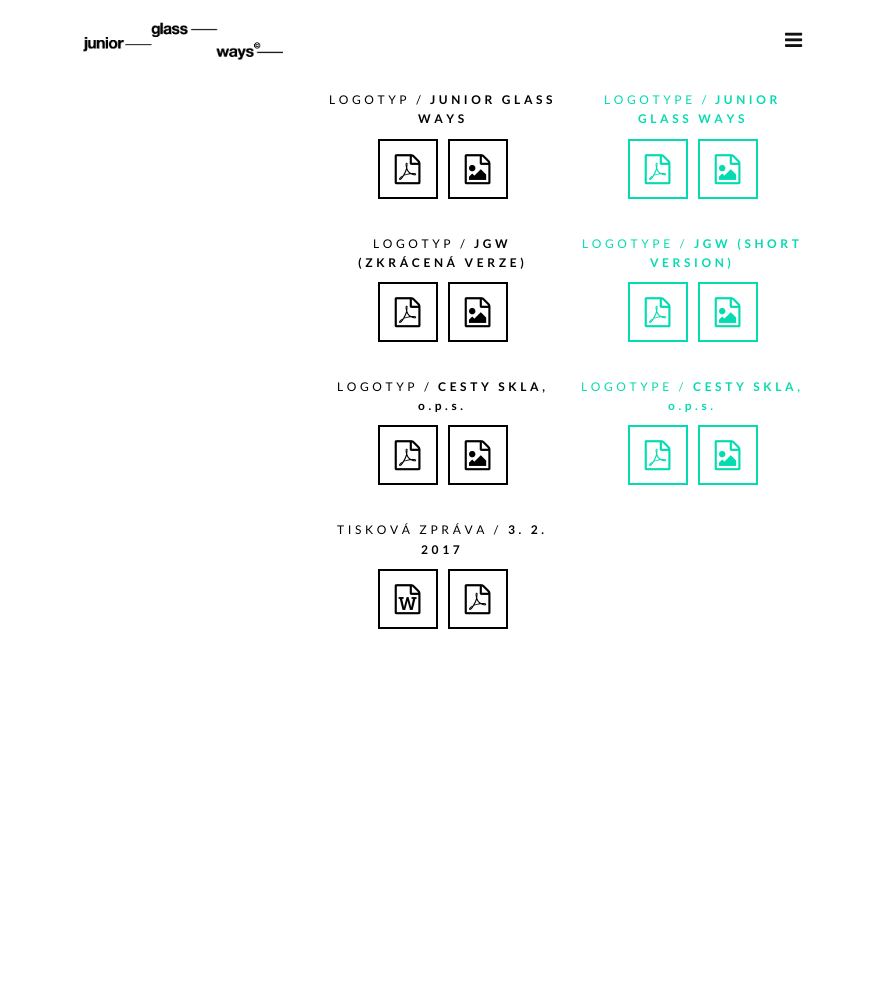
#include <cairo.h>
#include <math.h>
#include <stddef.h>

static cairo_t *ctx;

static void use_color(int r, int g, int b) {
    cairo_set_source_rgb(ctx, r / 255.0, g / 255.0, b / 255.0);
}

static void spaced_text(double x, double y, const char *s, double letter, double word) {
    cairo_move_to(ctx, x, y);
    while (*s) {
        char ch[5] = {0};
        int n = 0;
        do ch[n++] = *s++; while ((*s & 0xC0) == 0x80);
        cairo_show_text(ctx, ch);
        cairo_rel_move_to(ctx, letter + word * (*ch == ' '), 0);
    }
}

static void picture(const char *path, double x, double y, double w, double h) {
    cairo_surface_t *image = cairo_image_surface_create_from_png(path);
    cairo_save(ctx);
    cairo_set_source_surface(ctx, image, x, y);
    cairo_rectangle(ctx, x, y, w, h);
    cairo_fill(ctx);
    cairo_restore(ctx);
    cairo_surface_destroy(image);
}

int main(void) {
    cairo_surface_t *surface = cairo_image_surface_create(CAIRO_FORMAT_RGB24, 885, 998);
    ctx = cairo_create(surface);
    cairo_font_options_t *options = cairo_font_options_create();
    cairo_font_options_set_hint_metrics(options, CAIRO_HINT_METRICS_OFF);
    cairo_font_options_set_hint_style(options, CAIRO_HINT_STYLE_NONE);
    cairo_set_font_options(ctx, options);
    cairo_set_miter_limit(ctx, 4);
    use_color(255, 255, 255);
    cairo_paint(ctx);
    picture("img1.png", 83, 22, 200, 38);
    picture("img2.png", 785, 32, 18, 15);
    cairo_select_font_face(ctx, "Lato", CAIRO_FONT_SLANT_NORMAL, CAIRO_FONT_WEIGHT_NORMAL);
    cairo_set_font_size(ctx, 12);
    use_color(0, 0, 0);
    spaced_text(329, 104, "LOGOTYP /", 3.6, 0);
    cairo_select_font_face(ctx, "Lato", CAIRO_FONT_SLANT_NORMAL, CAIRO_FONT_WEIGHT_BOLD);
    spaced_text(430, 104, "JUNIOR GLASS", 3.6, 0);
    spaced_text(418, 123, "WAYS", 3.6, 0);
    cairo_rectangle(ctx, 379, 140, 58, 58);
    cairo_stroke(ctx);
    picture("img3.png", 394, 154, 27, 31);
    cairo_rectangle(ctx, 449, 140, 58, 58);
    cairo_stroke(ctx);
    picture("img4.png", 464, 154, 27, 31);
    cairo_select_font_face(ctx, "Lato", CAIRO_FONT_SLANT_NORMAL, CAIRO_FONT_WEIGHT_NORMAL);
    spaced_text(373, 248, "LOGOTYP /", 3.6, 0);
    cairo_select_font_face(ctx, "Lato", CAIRO_FONT_SLANT_NORMAL, CAIRO_FONT_WEIGHT_BOLD);
    spaced_text(474, 248, "JGW", 3.6, 0);
    spaced_text(358, 267, "(ZKRÁCENÁ VERZE)", 3.6, 0);
    cairo_rectangle(ctx, 379, 283, 58, 58);
    cairo_stroke(ctx);
    picture("img3.png", 394, 297, 27, 31);
    cairo_rectangle(ctx, 449, 283, 58, 58);
    cairo_stroke(ctx);
    picture("img4.png", 464, 297, 27, 31);
    cairo_select_font_face(ctx, "Lato", CAIRO_FONT_SLANT_NORMAL, CAIRO_FONT_WEIGHT_NORMAL);
    spaced_text(337, 391, "LOGOTYP /", 3.6, 0);
    cairo_select_font_face(ctx, "Lato", CAIRO_FONT_SLANT_NORMAL, CAIRO_FONT_WEIGHT_BOLD);
    spaced_text(438, 391, "CESTY SKLA,", 3.6, 0);
    spaced_text(418, 410, "o.p.s.", 3.6, 0);
    cairo_rectangle(ctx, 379, 426, 58, 58);
    cairo_stroke(ctx);
    picture("img3.png", 394, 440, 27, 31);
    cairo_rectangle(ctx, 449, 426, 58, 58);
    cairo_stroke(ctx);
    picture("img4.png", 464, 440, 27, 31);
    cairo_select_font_face(ctx, "Lato", CAIRO_FONT_SLANT_NORMAL, CAIRO_FONT_WEIGHT_NORMAL);
    spaced_text(337, 534, "TISKOVÁ ZPRÁVA /", 3.6, 0);
    cairo_select_font_face(ctx, "Lato", CAIRO_FONT_SLANT_NORMAL, CAIRO_FONT_WEIGHT_BOLD);
    spaced_text(508, 534, "3. 2.", 3.6, 0);
    spaced_text(421, 554, "2017", 3.6, 0);
    cairo_rectangle(ctx, 379, 570, 58, 58);
    cairo_stroke(ctx);
    picture("img5.png", 394, 584, 27, 31);
    cairo_rectangle(ctx, 449, 570, 58, 58);
    cairo_stroke(ctx);
    picture("img3.png", 464, 584, 27, 31);
    cairo_select_font_face(ctx, "Lato", CAIRO_FONT_SLANT_NORMAL, CAIRO_FONT_WEIGHT_NORMAL);
    use_color(4, 219, 176);
    spaced_text(604, 104, "LOGOTYPE /", 3.6, 0);
    cairo_select_font_face(ctx, "Lato", CAIRO_FONT_SLANT_NORMAL, CAIRO_FONT_WEIGHT_BOLD);
    spaced_text(715, 104, "JUNIOR", 3.6, 0);
    spaced_text(638, 123, "GLASS WAYS", 3.6, 0);
    cairo_rectangle(ctx, 629, 140, 58, 58);
    cairo_stroke(ctx);
    picture("img6.png", 644, 154, 27, 31);
    cairo_rectangle(ctx, 699, 140, 58, 58);
    cairo_stroke(ctx);
    picture("img7.png", 714, 154, 27, 31);
    cairo_select_font_face(ctx, "Lato", CAIRO_FONT_SLANT_NORMAL, CAIRO_FONT_WEIGHT_NORMAL);
    spaced_text(582, 248, "LOGOTYPE /", 3.6, 0);
    cairo_select_font_face(ctx, "Lato", CAIRO_FONT_SLANT_NORMAL, CAIRO_FONT_WEIGHT_BOLD);
    spaced_text(694, 248, "JGW (SHORT", 3.6, 0);
    spaced_text(650, 267, "VERSION)", 3.6, 0);
    cairo_rectangle(ctx, 629, 283, 58, 58);
    cairo_stroke(ctx);
    picture("img6.png", 644, 297, 27, 31);
    cairo_rectangle(ctx, 699, 283, 58, 58);
    cairo_stroke(ctx);
    picture("img7.png", 714, 297, 27, 31);
    cairo_select_font_face(ctx, "Lato", CAIRO_FONT_SLANT_NORMAL, CAIRO_FONT_WEIGHT_NORMAL);
    spaced_text(581, 391, "LOGOTYPE /", 3.6, 0);
    cairo_select_font_face(ctx, "Lato", CAIRO_FONT_SLANT_NORMAL, CAIRO_FONT_WEIGHT_BOLD);
    spaced_text(693, 391, "CESTY SKLA,", 3.6, 0);
    spaced_text(668, 410, "o.p.s.", 3.6, 0);
    cairo_rectangle(ctx, 629, 426, 58, 58);
    cairo_stroke(ctx);
    picture("img6.png", 644, 440, 27, 31);
    cairo_rectangle(ctx, 699, 426, 58, 58);
    cairo_stroke(ctx);
    picture("img7.png", 714, 440, 27, 31);
    cairo_surface_write_to_png(surface, "result.png");
    cairo_font_options_destroy(options);
    cairo_destroy(ctx);
    cairo_surface_destroy(surface);
    return 0;
}
